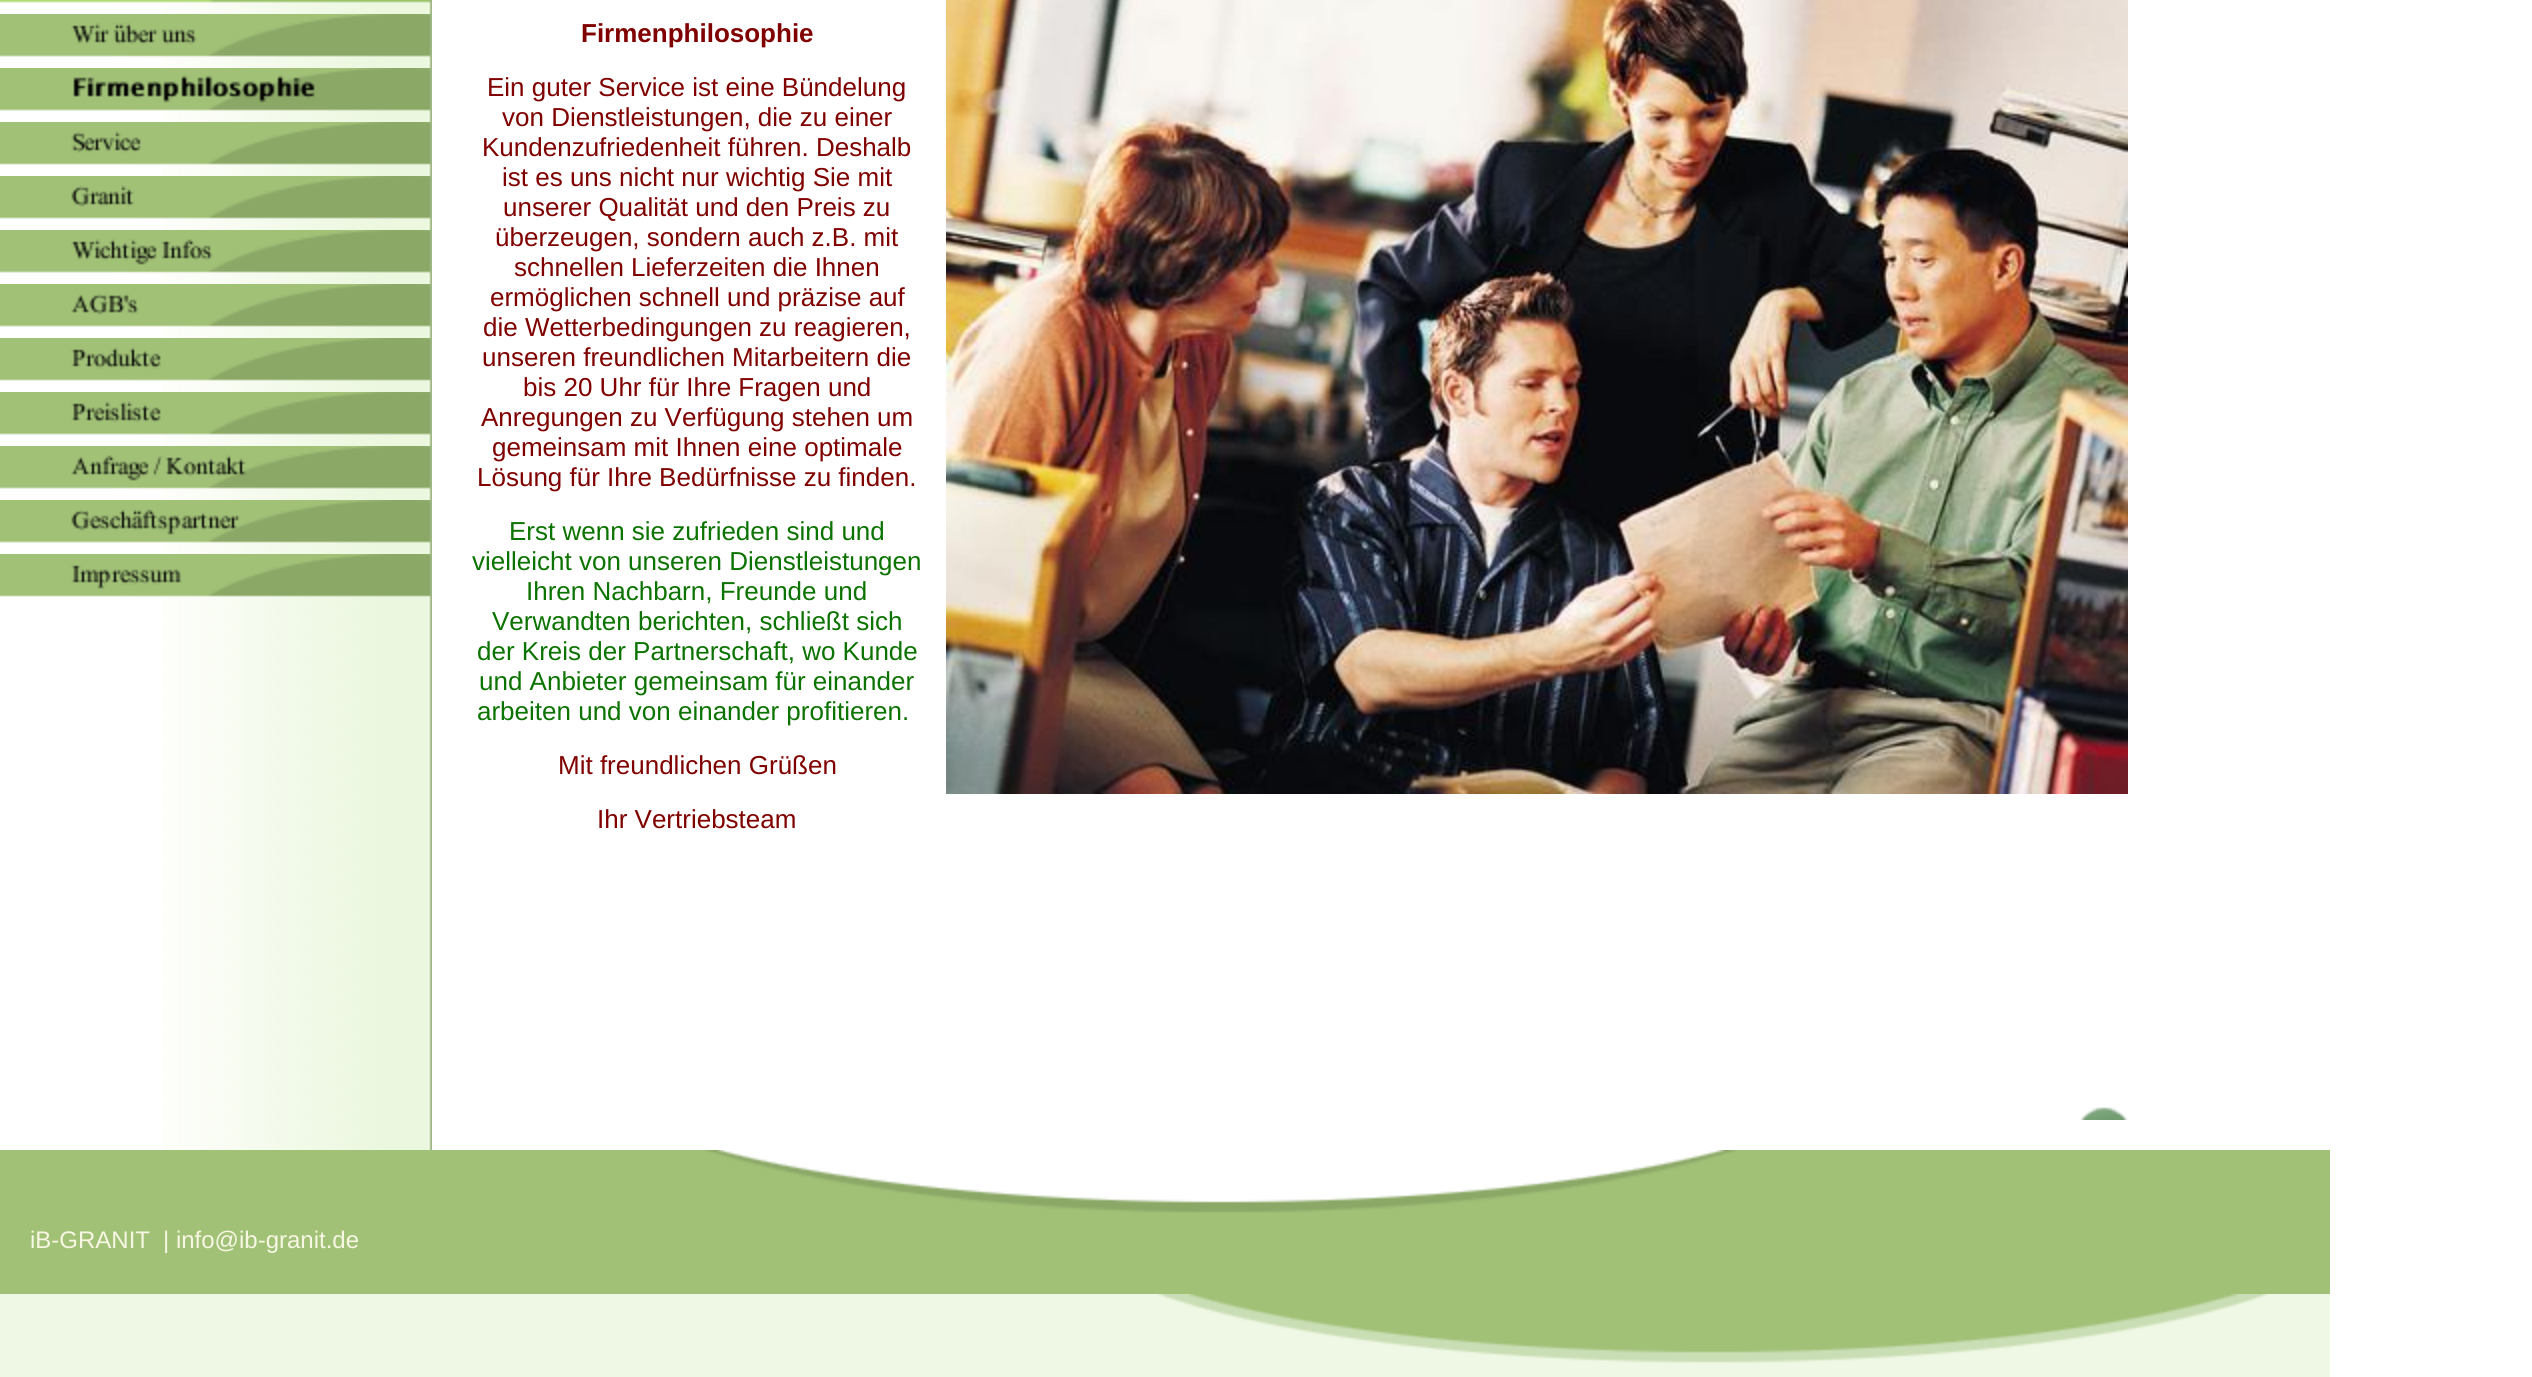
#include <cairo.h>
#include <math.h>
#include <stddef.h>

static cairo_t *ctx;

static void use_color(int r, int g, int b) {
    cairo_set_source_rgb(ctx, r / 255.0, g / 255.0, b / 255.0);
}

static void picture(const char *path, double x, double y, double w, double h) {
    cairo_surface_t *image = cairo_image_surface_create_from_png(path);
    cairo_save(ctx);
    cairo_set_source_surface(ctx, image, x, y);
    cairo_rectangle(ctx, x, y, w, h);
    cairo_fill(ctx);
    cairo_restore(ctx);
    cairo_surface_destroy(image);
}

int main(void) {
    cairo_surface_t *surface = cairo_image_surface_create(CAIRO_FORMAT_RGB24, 2532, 1377);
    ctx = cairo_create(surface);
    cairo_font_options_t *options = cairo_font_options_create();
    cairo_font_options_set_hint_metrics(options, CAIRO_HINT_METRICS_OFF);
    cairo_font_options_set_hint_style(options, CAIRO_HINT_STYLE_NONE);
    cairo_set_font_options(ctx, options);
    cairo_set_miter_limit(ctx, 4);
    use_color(255, 255, 255);
    cairo_paint(ctx);
    picture("img1.png", 162, 0, 270, 1150);
    picture("img2.png", 0, 0, 431, 4);
    picture("img3.png", 0, 14, 431, 44);
    picture("img4.png", 0, 68, 431, 44);
    picture("img5.png", 0, 122, 431, 44);
    picture("img6.png", 0, 176, 431, 44);
    picture("img7.png", 0, 230, 431, 44);
    picture("img8.png", 0, 284, 431, 44);
    picture("img9.png", 0, 338, 431, 44);
    picture("img10.png", 0, 392, 431, 44);
    picture("img11.png", 0, 446, 431, 44);
    picture("img12.png", 0, 500, 431, 44);
    picture("img13.png", 0, 554, 431, 44);
    cairo_select_font_face(ctx, "Liberation Sans", CAIRO_FONT_SLANT_NORMAL, CAIRO_FONT_WEIGHT_BOLD);
    cairo_set_font_size(ctx, 26);
    use_color(128, 0, 0);
    cairo_move_to(ctx, 581, 42);
    cairo_show_text(ctx, "Firmenphilosophie");
    cairo_select_font_face(ctx, "Liberation Sans", CAIRO_FONT_SLANT_NORMAL, CAIRO_FONT_WEIGHT_NORMAL);
    cairo_move_to(ctx, 487, 96);
    cairo_show_text(ctx, "Ein guter Service ist eine Bündelung");
    cairo_move_to(ctx, 502, 126);
    cairo_show_text(ctx, "von Dienstleistungen, die zu einer");
    cairo_move_to(ctx, 482, 156);
    cairo_show_text(ctx, "Kundenzufriedenheit führen. Deshalb");
    cairo_move_to(ctx, 502, 186);
    cairo_show_text(ctx, "ist es uns nicht nur wichtig Sie mit");
    cairo_move_to(ctx, 503, 216);
    cairo_show_text(ctx, "unserer Qualität und den Preis zu");
    cairo_move_to(ctx, 495, 246);
    cairo_show_text(ctx, "überzeugen, sondern auch z.B. mit");
    cairo_move_to(ctx, 514, 276);
    cairo_show_text(ctx, "schnellen Lieferzeiten die Ihnen");
    cairo_move_to(ctx, 490, 306);
    cairo_show_text(ctx, "ermöglichen schnell und präzise auf");
    cairo_move_to(ctx, 483, 336);
    cairo_show_text(ctx, "die Wetterbedingungen zu reagieren,");
    cairo_move_to(ctx, 482, 366);
    cairo_show_text(ctx, "unseren freundlichen Mitarbeitern die");
    cairo_move_to(ctx, 523, 396);
    cairo_show_text(ctx, "bis 20 Uhr für Ihre Fragen und");
    cairo_move_to(ctx, 481, 426);
    cairo_show_text(ctx, "Anregungen zu Verfügung stehen um");
    cairo_move_to(ctx, 492, 456);
    cairo_show_text(ctx, "gemeinsam mit Ihnen eine optimale");
    cairo_move_to(ctx, 477, 486);
    cairo_show_text(ctx, "Lösung für Ihre Bedürfnisse zu finden.");
    use_color(11, 115, 0);
    cairo_move_to(ctx, 509, 540);
    cairo_show_text(ctx, "Erst wenn sie zufrieden sind und");
    cairo_move_to(ctx, 472, 570);
    cairo_show_text(ctx, "vielleicht von unseren Dienstleistungen");
    cairo_move_to(ctx, 526, 600);
    cairo_show_text(ctx, "Ihren Nachbarn, Freunde und");
    cairo_move_to(ctx, 492, 630);
    cairo_show_text(ctx, "Verwandten berichten, schließt sich");
    cairo_move_to(ctx, 477, 660);
    cairo_show_text(ctx, "der Kreis der Partnerschaft, wo Kunde");
    cairo_move_to(ctx, 479, 690);
    cairo_show_text(ctx, "und Anbieter gemeinsam für einander");
    cairo_move_to(ctx, 477, 720);
    cairo_show_text(ctx, "arbeiten und von einander profitieren.");
    use_color(128, 0, 0);
    cairo_move_to(ctx, 558, 774);
    cairo_show_text(ctx, "Mit freundlichen Grüßen");
    cairo_move_to(ctx, 597, 828);
    cairo_show_text(ctx, "Ihr Vertriebsteam");
    picture("img14.png", 946, 0, 1182, 794);
    picture("img15.png", 2080, 1107, 48, 13);
    use_color(161, 193, 119);
    cairo_rectangle(ctx, 0, 1150, 2330, 144);
    cairo_fill(ctx);
    picture("img16.png", 705, 1150, 1032, 63);
    cairo_set_font_size(ctx, 24);
    use_color(248, 247, 228);
    cairo_move_to(ctx, 30, 1248);
    cairo_show_text(ctx, "iB-GRANIT");
    cairo_move_to(ctx, 163, 1248);
    cairo_show_text(ctx, "| info@ib-granit.de");
    use_color(239, 248, 228);
    cairo_rectangle(ctx, 0, 1294, 2330, 83);
    cairo_fill(ctx);
    picture("img17.png", 1158, 1294, 1110, 69);
    cairo_surface_write_to_png(surface, "result.png");
    cairo_font_options_destroy(options);
    cairo_destroy(ctx);
    cairo_surface_destroy(surface);
    return 0;
}
